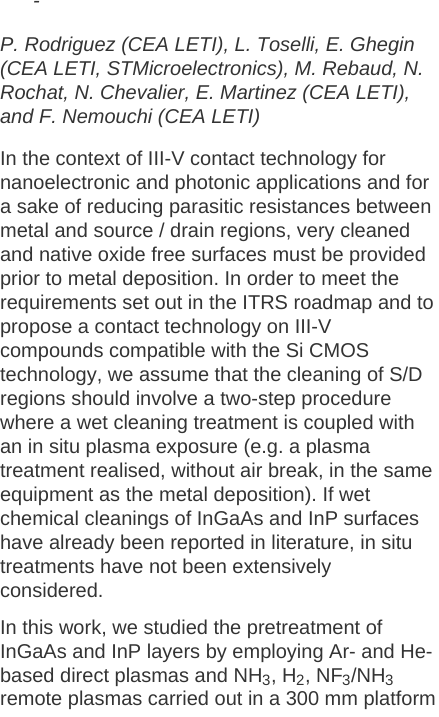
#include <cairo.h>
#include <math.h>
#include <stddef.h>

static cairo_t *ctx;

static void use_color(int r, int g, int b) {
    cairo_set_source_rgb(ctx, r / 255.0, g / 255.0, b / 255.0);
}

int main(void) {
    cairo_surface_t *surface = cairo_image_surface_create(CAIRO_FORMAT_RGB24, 439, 717);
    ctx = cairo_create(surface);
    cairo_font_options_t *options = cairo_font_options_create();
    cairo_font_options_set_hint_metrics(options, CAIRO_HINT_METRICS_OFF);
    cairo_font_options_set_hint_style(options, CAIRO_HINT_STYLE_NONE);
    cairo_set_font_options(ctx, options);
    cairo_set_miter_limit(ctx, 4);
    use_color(255, 255, 255);
    cairo_paint(ctx);
    cairo_select_font_face(ctx, "Liberation Sans", CAIRO_FONT_SLANT_ITALIC, CAIRO_FONT_WEIGHT_NORMAL);
    cairo_set_font_size(ctx, 20);
    use_color(51, 51, 51);
    cairo_move_to(ctx, 33, 7);
    cairo_show_text(ctx, "-");
    cairo_move_to(ctx, 0, 51);
    cairo_show_text(ctx, "P. Rodriguez (CEA LETI), L. Toselli, E. Ghegin");
    cairo_move_to(ctx, 0, 75);
    cairo_show_text(ctx, "(CEA LETI, STMicroelectronics), M. Rebaud, N.");
    cairo_move_to(ctx, 0, 99);
    cairo_show_text(ctx, "Rochat, N. Chevalier, E. Martinez (CEA LETI),");
    cairo_move_to(ctx, 0, 123);
    cairo_show_text(ctx, "and F. Nemouchi (CEA LETI)");
    cairo_select_font_face(ctx, "Liberation Sans", CAIRO_FONT_SLANT_NORMAL, CAIRO_FONT_WEIGHT_NORMAL);
    cairo_move_to(ctx, 0, 165);
    cairo_show_text(ctx, "In the context of III-V contact technology for");
    cairo_move_to(ctx, 0, 189);
    cairo_show_text(ctx, "nanoelectronic and photonic applications and for");
    cairo_move_to(ctx, 0, 213);
    cairo_show_text(ctx, "a sake of reducing parasitic resistances between");
    cairo_move_to(ctx, 0, 237);
    cairo_show_text(ctx, "metal and source / drain regions, very cleaned");
    cairo_move_to(ctx, 0, 261);
    cairo_show_text(ctx, "and native oxide free surfaces must be provided");
    cairo_move_to(ctx, 0, 285);
    cairo_show_text(ctx, "prior to metal deposition. In order to meet the");
    cairo_move_to(ctx, 0, 309);
    cairo_show_text(ctx, "requirements set out in the ITRS roadmap and to");
    cairo_move_to(ctx, 0, 333);
    cairo_show_text(ctx, "propose a contact technology on III-V");
    cairo_move_to(ctx, 0, 357);
    cairo_show_text(ctx, "compounds compatible with the Si CMOS");
    cairo_move_to(ctx, 0, 381);
    cairo_show_text(ctx, "technology, we assume that the cleaning of S/D");
    cairo_move_to(ctx, 0, 405);
    cairo_show_text(ctx, "regions should involve a two-step procedure");
    cairo_move_to(ctx, 0, 429);
    cairo_show_text(ctx, "where a wet cleaning treatment is coupled with");
    cairo_move_to(ctx, 0, 453);
    cairo_show_text(ctx, "an in situ plasma exposure (e.g. a plasma");
    cairo_move_to(ctx, 0, 477);
    cairo_show_text(ctx, "treatment realised, without air break, in the same");
    cairo_move_to(ctx, 0, 501);
    cairo_show_text(ctx, "equipment as the metal deposition). If wet");
    cairo_move_to(ctx, 0, 525);
    cairo_show_text(ctx, "chemical cleanings of InGaAs and InP surfaces");
    cairo_move_to(ctx, 0, 549);
    cairo_show_text(ctx, "have already been reported in literature, in situ");
    cairo_move_to(ctx, 0, 573);
    cairo_show_text(ctx, "treatments have not been extensively");
    cairo_move_to(ctx, 0, 597);
    cairo_show_text(ctx, "considered.");
    cairo_move_to(ctx, 0, 634);
    cairo_show_text(ctx, "In this work, we studied the pretreatment of");
    cairo_move_to(ctx, 0, 658);
    cairo_show_text(ctx, "InGaAs and InP layers by employing Ar- and He-");
    cairo_move_to(ctx, 0, 682);
    cairo_show_text(ctx, "based direct plasmas and NH");
    cairo_set_font_size(ctx, 15);
    cairo_move_to(ctx, 262, 685);
    cairo_show_text(ctx, "3");
    cairo_set_font_size(ctx, 20);
    cairo_move_to(ctx, 271, 682);
    cairo_show_text(ctx, ", H");
    cairo_set_font_size(ctx, 15);
    cairo_move_to(ctx, 296, 685);
    cairo_show_text(ctx, "2");
    cairo_set_font_size(ctx, 20);
    cairo_move_to(ctx, 305, 682);
    cairo_show_text(ctx, ", NF");
    cairo_move_to(ctx, 351, 682);
    cairo_show_text(ctx, "/NH");
    cairo_set_font_size(ctx, 15);
    cairo_move_to(ctx, 342, 685);
    cairo_show_text(ctx, "3");
    cairo_move_to(ctx, 385, 685);
    cairo_show_text(ctx, "3");
    cairo_set_font_size(ctx, 20);
    cairo_move_to(ctx, 0, 705);
    cairo_show_text(ctx, "remote plasmas carried out in a 300 mm platform");
    cairo_surface_write_to_png(surface, "result.png");
    cairo_font_options_destroy(options);
    cairo_destroy(ctx);
    cairo_surface_destroy(surface);
    return 0;
}
